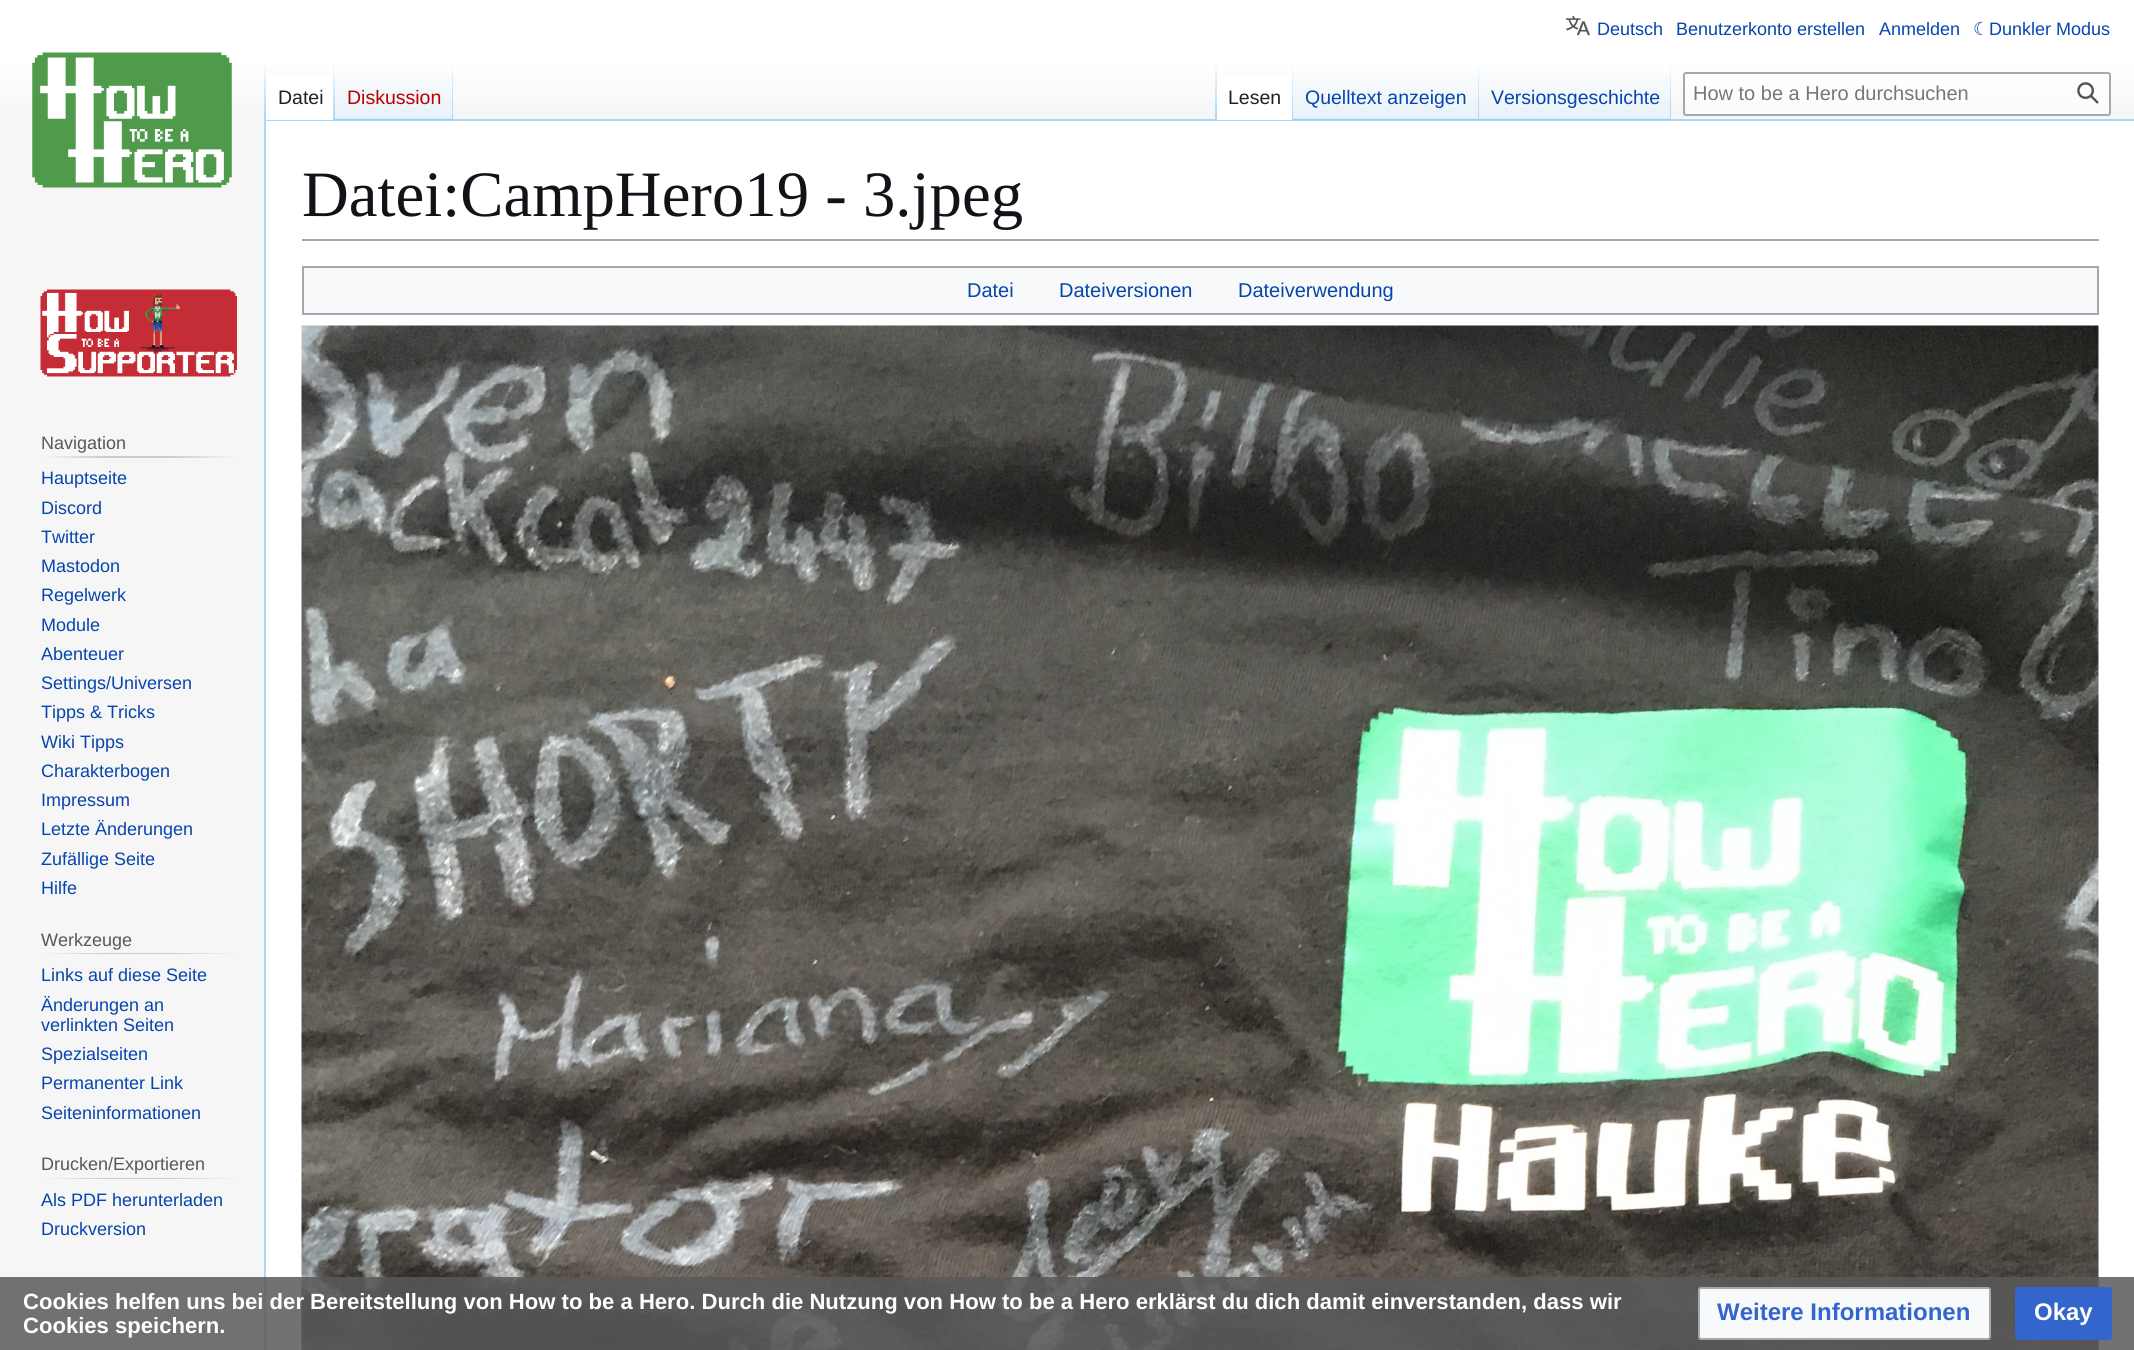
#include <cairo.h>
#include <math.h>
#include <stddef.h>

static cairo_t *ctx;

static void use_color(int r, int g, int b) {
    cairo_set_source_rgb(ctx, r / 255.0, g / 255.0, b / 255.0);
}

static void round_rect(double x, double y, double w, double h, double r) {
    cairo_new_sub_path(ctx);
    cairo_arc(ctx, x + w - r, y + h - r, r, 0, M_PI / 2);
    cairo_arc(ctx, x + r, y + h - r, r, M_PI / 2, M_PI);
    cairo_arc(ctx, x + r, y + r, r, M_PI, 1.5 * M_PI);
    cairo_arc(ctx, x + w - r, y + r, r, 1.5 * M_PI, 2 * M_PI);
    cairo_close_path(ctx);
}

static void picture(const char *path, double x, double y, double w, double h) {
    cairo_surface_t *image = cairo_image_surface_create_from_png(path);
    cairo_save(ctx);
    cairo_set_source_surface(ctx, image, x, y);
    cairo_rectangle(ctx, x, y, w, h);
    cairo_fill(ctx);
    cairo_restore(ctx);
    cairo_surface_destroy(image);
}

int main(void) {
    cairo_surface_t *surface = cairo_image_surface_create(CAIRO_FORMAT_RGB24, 2134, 1350);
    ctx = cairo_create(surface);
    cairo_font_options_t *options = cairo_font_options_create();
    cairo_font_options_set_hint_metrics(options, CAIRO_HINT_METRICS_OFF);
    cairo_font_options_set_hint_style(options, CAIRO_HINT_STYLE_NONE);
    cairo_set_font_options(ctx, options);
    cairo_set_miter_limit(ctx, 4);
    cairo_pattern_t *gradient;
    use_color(246, 246, 246);
    cairo_paint(ctx);
    gradient = cairo_pattern_create_linear(1067, 0, 1067, 120);
    cairo_pattern_add_color_stop_rgba(gradient, 0.5, 1, 1, 1, 1);
    cairo_pattern_add_color_stop_rgba(gradient, 1, 0.965, 0.965, 0.965, 1);
    cairo_set_source(ctx, gradient);
    cairo_pattern_destroy(gradient);
    cairo_rectangle(ctx, 0, 0, 2134, 103);
    cairo_fill(ctx);
    picture("img1.png", 1566, 16, 24, 20);
    cairo_select_font_face(ctx, "Liberation Sans", CAIRO_FONT_SLANT_NORMAL, CAIRO_FONT_WEIGHT_NORMAL);
    cairo_set_font_size(ctx, 18);
    use_color(6, 69, 173);
    cairo_move_to(ctx, 1597, 35);
    cairo_show_text(ctx, "Deutsch");
    cairo_move_to(ctx, 1676, 35);
    cairo_show_text(ctx, "Benutzerkonto erstellen");
    cairo_move_to(ctx, 1879, 35);
    cairo_show_text(ctx, "Anmelden");
    cairo_select_font_face(ctx, "DejaVu Sans", CAIRO_FONT_SLANT_NORMAL, CAIRO_FONT_WEIGHT_NORMAL);
    cairo_move_to(ctx, 1973, 35);
    cairo_show_text(ctx, "☾");
    cairo_select_font_face(ctx, "Liberation Sans", CAIRO_FONT_SLANT_NORMAL, CAIRO_FONT_WEIGHT_NORMAL);
    cairo_move_to(ctx, 1989, 35);
    cairo_show_text(ctx, "Dunkler Modus");
    use_color(167, 215, 249);
    cairo_rectangle(ctx, 264, 119, 1870, 2);
    cairo_fill(ctx);
    cairo_rectangle(ctx, 264, 119, 2, 1231);
    cairo_fill(ctx);
    gradient = cairo_pattern_create_linear(265, 60, 265, 120);
    cairo_pattern_add_color_stop_rgba(gradient, 0, 0.655, 0.843, 0.976, 0);
    cairo_pattern_add_color_stop_rgba(gradient, 1, 0.655, 0.843, 0.976, 1);
    cairo_set_source(ctx, gradient);
    cairo_pattern_destroy(gradient);
    cairo_rectangle(ctx, 264, 60, 2, 60);
    cairo_fill(ctx);
    use_color(255, 255, 255);
    cairo_rectangle(ctx, 266, 77, 67, 43);
    cairo_fill(ctx);
    gradient = cairo_pattern_create_linear(334, 60, 334, 120);
    cairo_pattern_add_color_stop_rgba(gradient, 0, 1, 1, 1, 1);
    cairo_pattern_add_color_stop_rgba(gradient, 1, 0.655, 0.843, 0.976, 1);
    cairo_set_source(ctx, gradient);
    cairo_pattern_destroy(gradient);
    cairo_rectangle(ctx, 333, 60, 2, 60);
    cairo_fill(ctx);
    cairo_set_font_size(ctx, 19.5);
    use_color(32, 33, 34);
    cairo_move_to(ctx, 278, 104);
    cairo_show_text(ctx, "Datei");
    gradient = cairo_pattern_create_linear(394, 120, 394, 60);
    cairo_pattern_add_color_stop_rgba(gradient, 0, 0.467, 0.757, 0.965, 1);
    cairo_pattern_add_color_stop_rgba(gradient, 0.03, 0.91, 0.949, 0.973, 1);
    cairo_pattern_add_color_stop_rgba(gradient, 1, 1, 1, 1, 1);
    cairo_set_source(ctx, gradient);
    cairo_pattern_destroy(gradient);
    cairo_rectangle(ctx, 335, 69, 118, 51);
    cairo_fill(ctx);
    gradient = cairo_pattern_create_linear(452, 60, 452, 120);
    cairo_pattern_add_color_stop_rgba(gradient, 0, 0.655, 0.843, 0.976, 0);
    cairo_pattern_add_color_stop_rgba(gradient, 1, 0.655, 0.843, 0.976, 1);
    cairo_set_source(ctx, gradient);
    cairo_pattern_destroy(gradient);
    cairo_rectangle(ctx, 452, 60, 1, 60);
    cairo_fill(ctx);
    use_color(186, 0, 0);
    cairo_move_to(ctx, 347, 104);
    cairo_show_text(ctx, "Diskussion");
    gradient = cairo_pattern_create_linear(1216, 60, 1216, 120);
    cairo_pattern_add_color_stop_rgba(gradient, 0, 0.655, 0.843, 0.976, 0);
    cairo_pattern_add_color_stop_rgba(gradient, 1, 0.655, 0.843, 0.976, 1);
    cairo_set_source(ctx, gradient);
    cairo_pattern_destroy(gradient);
    cairo_rectangle(ctx, 1215, 60, 2, 60);
    cairo_fill(ctx);
    use_color(255, 255, 255);
    cairo_rectangle(ctx, 1217, 77, 75, 43);
    cairo_fill(ctx);
    gradient = cairo_pattern_create_linear(1292, 60, 1292, 120);
    cairo_pattern_add_color_stop_rgba(gradient, 0, 1, 1, 1, 1);
    cairo_pattern_add_color_stop_rgba(gradient, 1, 0.655, 0.843, 0.976, 1);
    cairo_set_source(ctx, gradient);
    cairo_pattern_destroy(gradient);
    cairo_rectangle(ctx, 1292, 60, 1, 60);
    cairo_fill(ctx);
    use_color(32, 33, 34);
    cairo_move_to(ctx, 1228, 104);
    cairo_show_text(ctx, "Lesen");
    gradient = cairo_pattern_create_linear(1386, 120, 1386, 60);
    cairo_pattern_add_color_stop_rgba(gradient, 0, 0.467, 0.757, 0.965, 1);
    cairo_pattern_add_color_stop_rgba(gradient, 0.03, 0.91, 0.949, 0.973, 1);
    cairo_pattern_add_color_stop_rgba(gradient, 1, 1, 1, 1, 1);
    cairo_set_source(ctx, gradient);
    cairo_pattern_destroy(gradient);
    cairo_rectangle(ctx, 1293, 69, 186, 51);
    cairo_fill(ctx);
    gradient = cairo_pattern_create_linear(1478, 60, 1478, 120);
    cairo_pattern_add_color_stop_rgba(gradient, 0, 0.655, 0.843, 0.976, 0);
    cairo_pattern_add_color_stop_rgba(gradient, 1, 0.655, 0.843, 0.976, 1);
    cairo_set_source(ctx, gradient);
    cairo_pattern_destroy(gradient);
    cairo_rectangle(ctx, 1478, 60, 1, 60);
    cairo_fill(ctx);
    use_color(6, 69, 173);
    cairo_move_to(ctx, 1305, 104);
    cairo_show_text(ctx, "Quelltext anzeigen");
    gradient = cairo_pattern_create_linear(1575, 120, 1575, 60);
    cairo_pattern_add_color_stop_rgba(gradient, 0, 0.467, 0.757, 0.965, 1);
    cairo_pattern_add_color_stop_rgba(gradient, 0.03, 0.91, 0.949, 0.973, 1);
    cairo_pattern_add_color_stop_rgba(gradient, 1, 1, 1, 1, 1);
    cairo_set_source(ctx, gradient);
    cairo_pattern_destroy(gradient);
    cairo_rectangle(ctx, 1479, 69, 192, 51);
    cairo_fill(ctx);
    gradient = cairo_pattern_create_linear(1670, 60, 1670, 120);
    cairo_pattern_add_color_stop_rgba(gradient, 0, 0.655, 0.843, 0.976, 0);
    cairo_pattern_add_color_stop_rgba(gradient, 1, 0.655, 0.843, 0.976, 1);
    cairo_set_source(ctx, gradient);
    cairo_pattern_destroy(gradient);
    cairo_rectangle(ctx, 1670, 60, 1, 60);
    cairo_fill(ctx);
    use_color(6, 69, 173);
    cairo_move_to(ctx, 1491, 104);
    cairo_show_text(ctx, "Versionsgeschichte");
    cairo_set_source_rgba(ctx, 1, 1, 1, 0.5);
    round_rect(1684, 73, 426, 42, 2);
    cairo_fill_preserve(ctx);
    use_color(162, 169, 177);
    cairo_stroke(ctx);
    cairo_set_font_size(ctx, 20);
    use_color(114, 119, 125);
    cairo_move_to(ctx, 1693, 100);
    cairo_show_text(ctx, "How to be a Hero durchsuchen");
    picture("img2.png", 2077, 82, 22, 22);
    picture("img3.png", 32, 52, 200, 136);
    picture("img4.png", 40, 289, 197, 88);
    gradient = cairo_pattern_create_linear(41, 457, 237, 457);
    cairo_pattern_add_color_stop_rgba(gradient, 0, 0.965, 0.965, 0.965, 1);
    cairo_pattern_add_color_stop_rgba(gradient, 0.33, 0.784, 0.8, 0.82, 1);
    cairo_pattern_add_color_stop_rgba(gradient, 0.66, 0.784, 0.8, 0.82, 1);
    cairo_pattern_add_color_stop_rgba(gradient, 1, 0.965, 0.965, 0.965, 1);
    cairo_set_source(ctx, gradient);
    cairo_pattern_destroy(gradient);
    cairo_rectangle(ctx, 41, 456, 196, 2);
    cairo_fill(ctx);
    cairo_set_font_size(ctx, 18);
    use_color(84, 89, 93);
    cairo_move_to(ctx, 41, 449);
    cairo_show_text(ctx, "Navigation");
    use_color(6, 69, 173);
    cairo_move_to(ctx, 41, 484);
    cairo_show_text(ctx, "Hauptseite");
    cairo_move_to(ctx, 41, 514);
    cairo_show_text(ctx, "Discord");
    cairo_move_to(ctx, 41, 543);
    cairo_show_text(ctx, "Twitter");
    cairo_move_to(ctx, 41, 572);
    cairo_show_text(ctx, "Mastodon");
    cairo_move_to(ctx, 41, 601);
    cairo_show_text(ctx, "Regelwerk");
    cairo_move_to(ctx, 41, 631);
    cairo_show_text(ctx, "Module");
    cairo_move_to(ctx, 41, 660);
    cairo_show_text(ctx, "Abenteuer");
    cairo_move_to(ctx, 41, 689);
    cairo_show_text(ctx, "Settings/Universen");
    cairo_move_to(ctx, 41, 718);
    cairo_show_text(ctx, "Tipps & Tricks");
    cairo_move_to(ctx, 41, 748);
    cairo_show_text(ctx, "Wiki Tipps");
    cairo_move_to(ctx, 41, 777);
    cairo_show_text(ctx, "Charakterbogen");
    cairo_move_to(ctx, 41, 806);
    cairo_show_text(ctx, "Impressum");
    cairo_move_to(ctx, 41, 835);
    cairo_show_text(ctx, "Letzte Änderungen");
    cairo_move_to(ctx, 41, 865);
    cairo_show_text(ctx, "Zufällige Seite");
    cairo_move_to(ctx, 41, 894);
    cairo_show_text(ctx, "Hilfe");
    gradient = cairo_pattern_create_linear(41, 953, 237, 953);
    cairo_pattern_add_color_stop_rgba(gradient, 0, 0.965, 0.965, 0.965, 1);
    cairo_pattern_add_color_stop_rgba(gradient, 0.33, 0.784, 0.8, 0.82, 1);
    cairo_pattern_add_color_stop_rgba(gradient, 0.66, 0.784, 0.8, 0.82, 1);
    cairo_pattern_add_color_stop_rgba(gradient, 1, 0.965, 0.965, 0.965, 1);
    cairo_set_source(ctx, gradient);
    cairo_pattern_destroy(gradient);
    cairo_rectangle(ctx, 41, 953, 196, 1);
    cairo_fill(ctx);
    use_color(84, 89, 93);
    cairo_move_to(ctx, 41, 946);
    cairo_show_text(ctx, "Werkzeuge");
    use_color(6, 69, 173);
    cairo_move_to(ctx, 41, 981);
    cairo_show_text(ctx, "Links auf diese Seite");
    cairo_move_to(ctx, 41, 1011);
    cairo_show_text(ctx, "Änderungen an");
    cairo_move_to(ctx, 41, 1031);
    cairo_show_text(ctx, "verlinkten Seiten");
    cairo_move_to(ctx, 41, 1060);
    cairo_show_text(ctx, "Spezialseiten");
    cairo_move_to(ctx, 41, 1089);
    cairo_show_text(ctx, "Permanenter Link");
    cairo_move_to(ctx, 41, 1119);
    cairo_show_text(ctx, "Seiteninformationen");
    gradient = cairo_pattern_create_linear(41, 1178, 237, 1178);
    cairo_pattern_add_color_stop_rgba(gradient, 0, 0.965, 0.965, 0.965, 1);
    cairo_pattern_add_color_stop_rgba(gradient, 0.33, 0.784, 0.8, 0.82, 1);
    cairo_pattern_add_color_stop_rgba(gradient, 0.66, 0.784, 0.8, 0.82, 1);
    cairo_pattern_add_color_stop_rgba(gradient, 1, 0.965, 0.965, 0.965, 1);
    cairo_set_source(ctx, gradient);
    cairo_pattern_destroy(gradient);
    cairo_rectangle(ctx, 41, 1178, 196, 1);
    cairo_fill(ctx);
    use_color(84, 89, 93);
    cairo_move_to(ctx, 41, 1170);
    cairo_show_text(ctx, "Drucken/Exportieren");
    use_color(6, 69, 173);
    cairo_move_to(ctx, 41, 1206);
    cairo_show_text(ctx, "Als PDF herunterladen");
    cairo_move_to(ctx, 41, 1235);
    cairo_show_text(ctx, "Druckversion");
    use_color(255, 255, 255);
    cairo_rectangle(ctx, 266, 121, 1868, 1229);
    cairo_fill(ctx);
    use_color(162, 169, 177);
    cairo_rectangle(ctx, 302, 239, 1797, 2);
    cairo_fill(ctx);
    cairo_select_font_face(ctx, "Liberation Serif", CAIRO_FONT_SLANT_NORMAL, CAIRO_FONT_WEIGHT_NORMAL);
    cairo_set_font_size(ctx, 64.75);
    use_color(16, 20, 24);
    cairo_move_to(ctx, 302, 216);
    cairo_show_text(ctx, "Datei:CampHero19 - 3.jpeg");
    use_color(248, 249, 250);
    cairo_rectangle(ctx, 303, 267, 1795, 47);
    cairo_fill_preserve(ctx);
    use_color(162, 169, 177);
    cairo_stroke(ctx);
    cairo_select_font_face(ctx, "Liberation Sans", CAIRO_FONT_SLANT_NORMAL, CAIRO_FONT_WEIGHT_NORMAL);
    cairo_set_font_size(ctx, 20);
    use_color(6, 69, 173);
    cairo_move_to(ctx, 967, 297);
    cairo_show_text(ctx, "Datei");
    cairo_move_to(ctx, 1059, 297);
    cairo_show_text(ctx, "Dateiversionen");
    cairo_move_to(ctx, 1238, 297);
    cairo_show_text(ctx, "Dateiverwendung");
    picture("img5.png", 301, 325, 1798, 1025);
    cairo_set_source_rgba(ctx, 0.353, 0.353, 0.353, 0.85);
    cairo_rectangle(ctx, 0, 1277, 2134, 73);
    cairo_fill(ctx);
    cairo_select_font_face(ctx, "Liberation Sans", CAIRO_FONT_SLANT_NORMAL, CAIRO_FONT_WEIGHT_BOLD);
    cairo_set_font_size(ctx, 22.08);
    use_color(255, 255, 255);
    cairo_move_to(ctx, 23, 1309);
    cairo_show_text(ctx, "Cookies helfen uns bei der Bereitstellung von How to be a Hero. Durch die Nutzung von How to be a Hero erklärst du dich damit einverstanden, dass wir");
    cairo_move_to(ctx, 23, 1333);
    cairo_show_text(ctx, "Cookies speichern.");
    use_color(248, 249, 250);
    round_rect(1699, 1288, 291, 51, 2);
    cairo_fill_preserve(ctx);
    use_color(162, 169, 177);
    cairo_stroke(ctx);
    cairo_set_font_size(ctx, 24);
    use_color(51, 102, 204);
    cairo_move_to(ctx, 1717, 1320);
    cairo_show_text(ctx, "Weitere Informationen");
    round_rect(2016, 1288, 95, 51, 2);
    cairo_fill_preserve(ctx);
    cairo_stroke(ctx);
    use_color(255, 255, 255);
    cairo_move_to(ctx, 2034, 1320);
    cairo_show_text(ctx, "Okay");
    cairo_surface_write_to_png(surface, "result.png");
    cairo_font_options_destroy(options);
    cairo_destroy(ctx);
    cairo_surface_destroy(surface);
    return 0;
}
